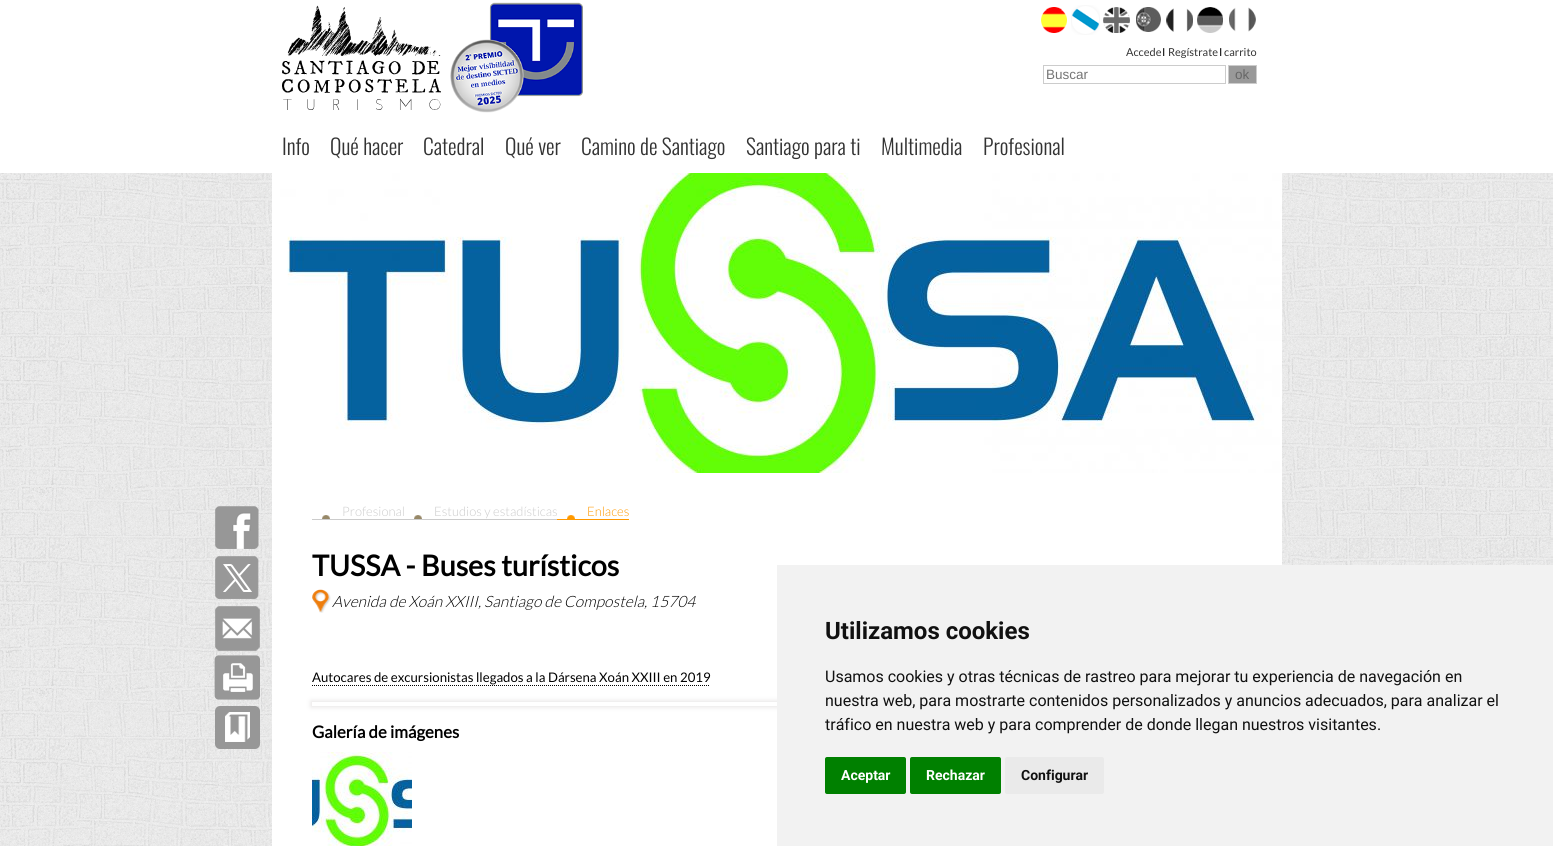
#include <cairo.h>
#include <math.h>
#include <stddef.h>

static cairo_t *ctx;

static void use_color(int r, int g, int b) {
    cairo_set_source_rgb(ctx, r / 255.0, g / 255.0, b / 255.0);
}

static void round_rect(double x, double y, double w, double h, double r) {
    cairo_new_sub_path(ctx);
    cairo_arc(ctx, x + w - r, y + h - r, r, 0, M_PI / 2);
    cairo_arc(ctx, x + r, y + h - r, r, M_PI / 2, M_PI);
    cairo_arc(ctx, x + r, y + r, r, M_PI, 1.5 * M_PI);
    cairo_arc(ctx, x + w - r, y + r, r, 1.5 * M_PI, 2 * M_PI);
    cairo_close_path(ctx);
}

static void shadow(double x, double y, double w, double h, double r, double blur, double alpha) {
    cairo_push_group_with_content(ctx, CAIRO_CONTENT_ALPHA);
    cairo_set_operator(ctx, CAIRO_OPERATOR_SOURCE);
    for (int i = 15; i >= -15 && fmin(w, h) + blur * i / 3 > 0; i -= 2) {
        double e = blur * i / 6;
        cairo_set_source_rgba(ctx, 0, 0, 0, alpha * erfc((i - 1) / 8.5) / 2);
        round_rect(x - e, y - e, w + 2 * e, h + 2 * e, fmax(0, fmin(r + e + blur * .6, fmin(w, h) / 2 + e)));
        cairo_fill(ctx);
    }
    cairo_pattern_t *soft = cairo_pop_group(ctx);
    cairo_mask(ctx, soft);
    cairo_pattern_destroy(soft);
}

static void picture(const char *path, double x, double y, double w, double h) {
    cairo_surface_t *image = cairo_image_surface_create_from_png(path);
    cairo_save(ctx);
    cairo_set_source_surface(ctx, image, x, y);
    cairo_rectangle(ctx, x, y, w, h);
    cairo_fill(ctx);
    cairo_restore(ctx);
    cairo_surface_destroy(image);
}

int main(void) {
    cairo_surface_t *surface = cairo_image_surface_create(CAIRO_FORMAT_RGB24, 1553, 846);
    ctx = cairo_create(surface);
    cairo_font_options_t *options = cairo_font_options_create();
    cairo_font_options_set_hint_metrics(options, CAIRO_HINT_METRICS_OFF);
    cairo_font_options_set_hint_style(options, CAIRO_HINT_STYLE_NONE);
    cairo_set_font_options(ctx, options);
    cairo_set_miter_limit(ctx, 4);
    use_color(255, 255, 255);
    cairo_paint(ctx);
    picture("img1.png", 0, 173, 1553, 673);
    picture("img2.png", 282, 5, 159, 105);
    picture("img3.png", 450, 2, 133, 111);
    picture("img4.png", 1041, 7, 26, 26);
    picture("img5.png", 1071, 5, 29, 30);
    picture("img6.png", 1103, 7, 27, 26);
    picture("img7.png", 1136, 7, 25, 25);
    picture("img8.png", 1166, 8, 27, 24);
    picture("img9.png", 1197, 7, 26, 26);
    picture("img10.png", 1229, 7, 27, 25);
    cairo_select_font_face(ctx, "Lato", CAIRO_FONT_SLANT_NORMAL, CAIRO_FONT_WEIGHT_NORMAL);
    cairo_set_font_size(ctx, 11);
    use_color(51, 51, 51);
    cairo_move_to(ctx, 1126, 56);
    cairo_show_text(ctx, "Accede");
    use_color(0, 0, 0);
    cairo_move_to(ctx, 1162, 56);
    cairo_show_text(ctx, "I");
    use_color(51, 51, 51);
    cairo_move_to(ctx, 1168, 56);
    cairo_show_text(ctx, "Regístrate");
    use_color(0, 0, 0);
    cairo_move_to(ctx, 1219, 56);
    cairo_show_text(ctx, "I");
    use_color(51, 51, 51);
    cairo_move_to(ctx, 1224, 56);
    cairo_show_text(ctx, "carrito");
    cairo_rectangle(ctx, 1043.5, 65.5, 182, 18);
    use_color(204, 204, 204);
    cairo_set_line_width(ctx, 1);
    cairo_stroke(ctx);
    cairo_select_font_face(ctx, "Liberation Sans", CAIRO_FONT_SLANT_NORMAL, CAIRO_FONT_WEIGHT_NORMAL);
    cairo_set_font_size(ctx, 13.5);
    use_color(117, 117, 117);
    cairo_move_to(ctx, 1046, 79);
    cairo_show_text(ctx, "Buscar");
    use_color(153, 153, 153);
    cairo_rectangle(ctx, 1228.5, 65.5, 28, 18);
    cairo_fill_preserve(ctx);
    use_color(204, 204, 204);
    cairo_stroke(ctx);
    use_color(102, 102, 102);
    cairo_move_to(ctx, 1235, 79);
    cairo_show_text(ctx, "ok");
    cairo_select_font_face(ctx, "Oswald Light", CAIRO_FONT_SLANT_NORMAL, CAIRO_FONT_WEIGHT_NORMAL);
    cairo_set_font_size(ctx, 21.5);
    use_color(51, 51, 51);
    cairo_move_to(ctx, 282, 155);
    cairo_show_text(ctx, "Info");
    cairo_move_to(ctx, 330, 155);
    cairo_show_text(ctx, "Qué hacer");
    cairo_move_to(ctx, 423, 155);
    cairo_show_text(ctx, "Catedral");
    cairo_move_to(ctx, 505, 155);
    cairo_show_text(ctx, "Qué ver");
    cairo_move_to(ctx, 581, 155);
    cairo_show_text(ctx, "Camino de Santiago");
    cairo_move_to(ctx, 746, 155);
    cairo_show_text(ctx, "Santiago para ti");
    cairo_move_to(ctx, 881, 155);
    cairo_show_text(ctx, "Multimedia");
    cairo_move_to(ctx, 983, 155);
    cairo_show_text(ctx, "Profesional");
    picture("img11.png", 272, 173, 1010, 300);
    use_color(255, 255, 255);
    cairo_rectangle(ctx, 272, 473, 1010, 373);
    cairo_fill(ctx);
    picture("img12.png", 215, 506, 44, 43);
    picture("img13.png", 215, 556, 44, 43);
    picture("img14.png", 215, 606, 45, 45);
    picture("img15.png", 214, 655, 46, 45);
    picture("img16.png", 215, 706, 45, 43);
    picture("img17.png", 322, 515, 8, 4);
    use_color(204, 204, 204);
    cairo_rectangle(ctx, 312, 519, 245, 1);
    cairo_fill(ctx);
    cairo_select_font_face(ctx, "Lato Light", CAIRO_FONT_SLANT_NORMAL, CAIRO_FONT_WEIGHT_NORMAL);
    cairo_set_font_size(ctx, 13);
    cairo_move_to(ctx, 342, 516);
    cairo_show_text(ctx, "Profesional");
    picture("img17.png", 414, 515, 8, 4);
    cairo_move_to(ctx, 434, 516);
    cairo_show_text(ctx, "Estudios y estadísticas");
    picture("img18.png", 567, 515, 8, 4);
    use_color(255, 153, 0);
    cairo_rectangle(ctx, 557, 519, 72, 1);
    cairo_fill(ctx);
    cairo_move_to(ctx, 587, 516);
    cairo_show_text(ctx, "Enlaces");
    cairo_save(ctx);
    cairo_rectangle(ctx, 312, 548, 930, 106);
    cairo_clip(ctx);
    cairo_select_font_face(ctx, "Lato", CAIRO_FONT_SLANT_NORMAL, CAIRO_FONT_WEIGHT_BOLD);
    cairo_set_font_size(ctx, 28.75);
    use_color(0, 0, 0);
    cairo_move_to(ctx, 312, 576);
    cairo_show_text(ctx, "TUSSA - Buses turísticos");
    cairo_restore(ctx);
    picture("img19.png", 312, 589, 19, 24);
    cairo_select_font_face(ctx, "Lato Light", CAIRO_FONT_SLANT_ITALIC, CAIRO_FONT_WEIGHT_NORMAL);
    cairo_set_font_size(ctx, 15.6);
    use_color(0, 0, 0);
    cairo_move_to(ctx, 332, 607);
    cairo_show_text(ctx, "Avenida de Xoán XXIII, Santiago de Compostela, 15704");
    cairo_select_font_face(ctx, "Lato", CAIRO_FONT_SLANT_NORMAL, CAIRO_FONT_WEIGHT_NORMAL);
    cairo_set_font_size(ctx, 13.2);
    cairo_move_to(ctx, 312, 682);
    cairo_show_text(ctx, "Autocares de excursionistas llegados a la Dársena Xoán XXIII en 2019");
    cairo_new_path(ctx);
    cairo_move_to(ctx, 312, 685.5);
    cairo_line_to(ctx, 710, 685.5);
    cairo_set_dash(ctx, (double[]){1, 1}, 2, 0);
    cairo_stroke(ctx);
    cairo_save(ctx);
    cairo_set_fill_rule(ctx, CAIRO_FILL_RULE_EVEN_ODD);
    cairo_new_path(ctx);
    cairo_move_to(ctx, 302, 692);
    cairo_line_to(ctx, 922, 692);
    cairo_line_to(ctx, 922, 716);
    cairo_line_to(ctx, 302, 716);
    cairo_close_path(ctx);
    cairo_move_to(ctx, 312, 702);
    cairo_line_to(ctx, 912, 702);
    cairo_line_to(ctx, 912, 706);
    cairo_line_to(ctx, 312, 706);
    cairo_close_path(ctx);
    cairo_clip(ctx);
    use_color(230, 228, 228);
    shadow(311, 701, 602, 6, 0, 2.5, 1);
    cairo_restore(ctx);
    cairo_select_font_face(ctx, "Lato", CAIRO_FONT_SLANT_NORMAL, CAIRO_FONT_WEIGHT_BOLD);
    cairo_set_font_size(ctx, 16.75);
    cairo_move_to(ctx, 312, 738);
    cairo_show_text(ctx, "Galería de imágenes");
    picture("img20.png", 312, 752, 100, 94);
    use_color(242, 242, 242);
    cairo_rectangle(ctx, 777, 565, 776, 281);
    cairo_fill(ctx);
    cairo_select_font_face(ctx, "Roboto", CAIRO_FONT_SLANT_NORMAL, CAIRO_FONT_WEIGHT_BOLD);
    cairo_set_font_size(ctx, 24);
    use_color(17, 17, 17);
    cairo_move_to(ctx, 825, 639);
    cairo_show_text(ctx, "Utilizamos cookies");
    cairo_select_font_face(ctx, "Roboto", CAIRO_FONT_SLANT_NORMAL, CAIRO_FONT_WEIGHT_NORMAL);
    cairo_set_font_size(ctx, 16);
    cairo_move_to(ctx, 825, 682);
    cairo_show_text(ctx, "Usamos cookies y otras técnicas de rastreo para mejorar tu experiencia de navegación en");
    cairo_move_to(ctx, 825, 706);
    cairo_show_text(ctx, "nuestra web, para mostrarte contenidos personalizados y anuncios adecuados, para analizar el");
    cairo_move_to(ctx, 825, 730);
    cairo_show_text(ctx, "tráfico en nuestra web y para comprender de donde llegan nuestros visitantes.");
    use_color(0, 128, 0);
    round_rect(825, 757, 81, 37, 2);
    cairo_fill(ctx);
    cairo_select_font_face(ctx, "Roboto", CAIRO_FONT_SLANT_NORMAL, CAIRO_FONT_WEIGHT_BOLD);
    cairo_set_font_size(ctx, 14);
    use_color(255, 255, 255);
    cairo_move_to(ctx, 841, 780);
    cairo_show_text(ctx, "Aceptar");
    use_color(0, 128, 0);
    round_rect(910, 757, 91, 37, 2);
    cairo_fill(ctx);
    use_color(255, 255, 255);
    cairo_move_to(ctx, 926, 780);
    cairo_show_text(ctx, "Rechazar");
    use_color(234, 234, 234);
    round_rect(1005, 757, 99, 37, 2);
    cairo_fill(ctx);
    use_color(17, 17, 17);
    cairo_move_to(ctx, 1021, 780);
    cairo_show_text(ctx, "Configurar");
    cairo_surface_write_to_png(surface, "result.png");
    cairo_font_options_destroy(options);
    cairo_destroy(ctx);
    cairo_surface_destroy(surface);
    return 0;
}
